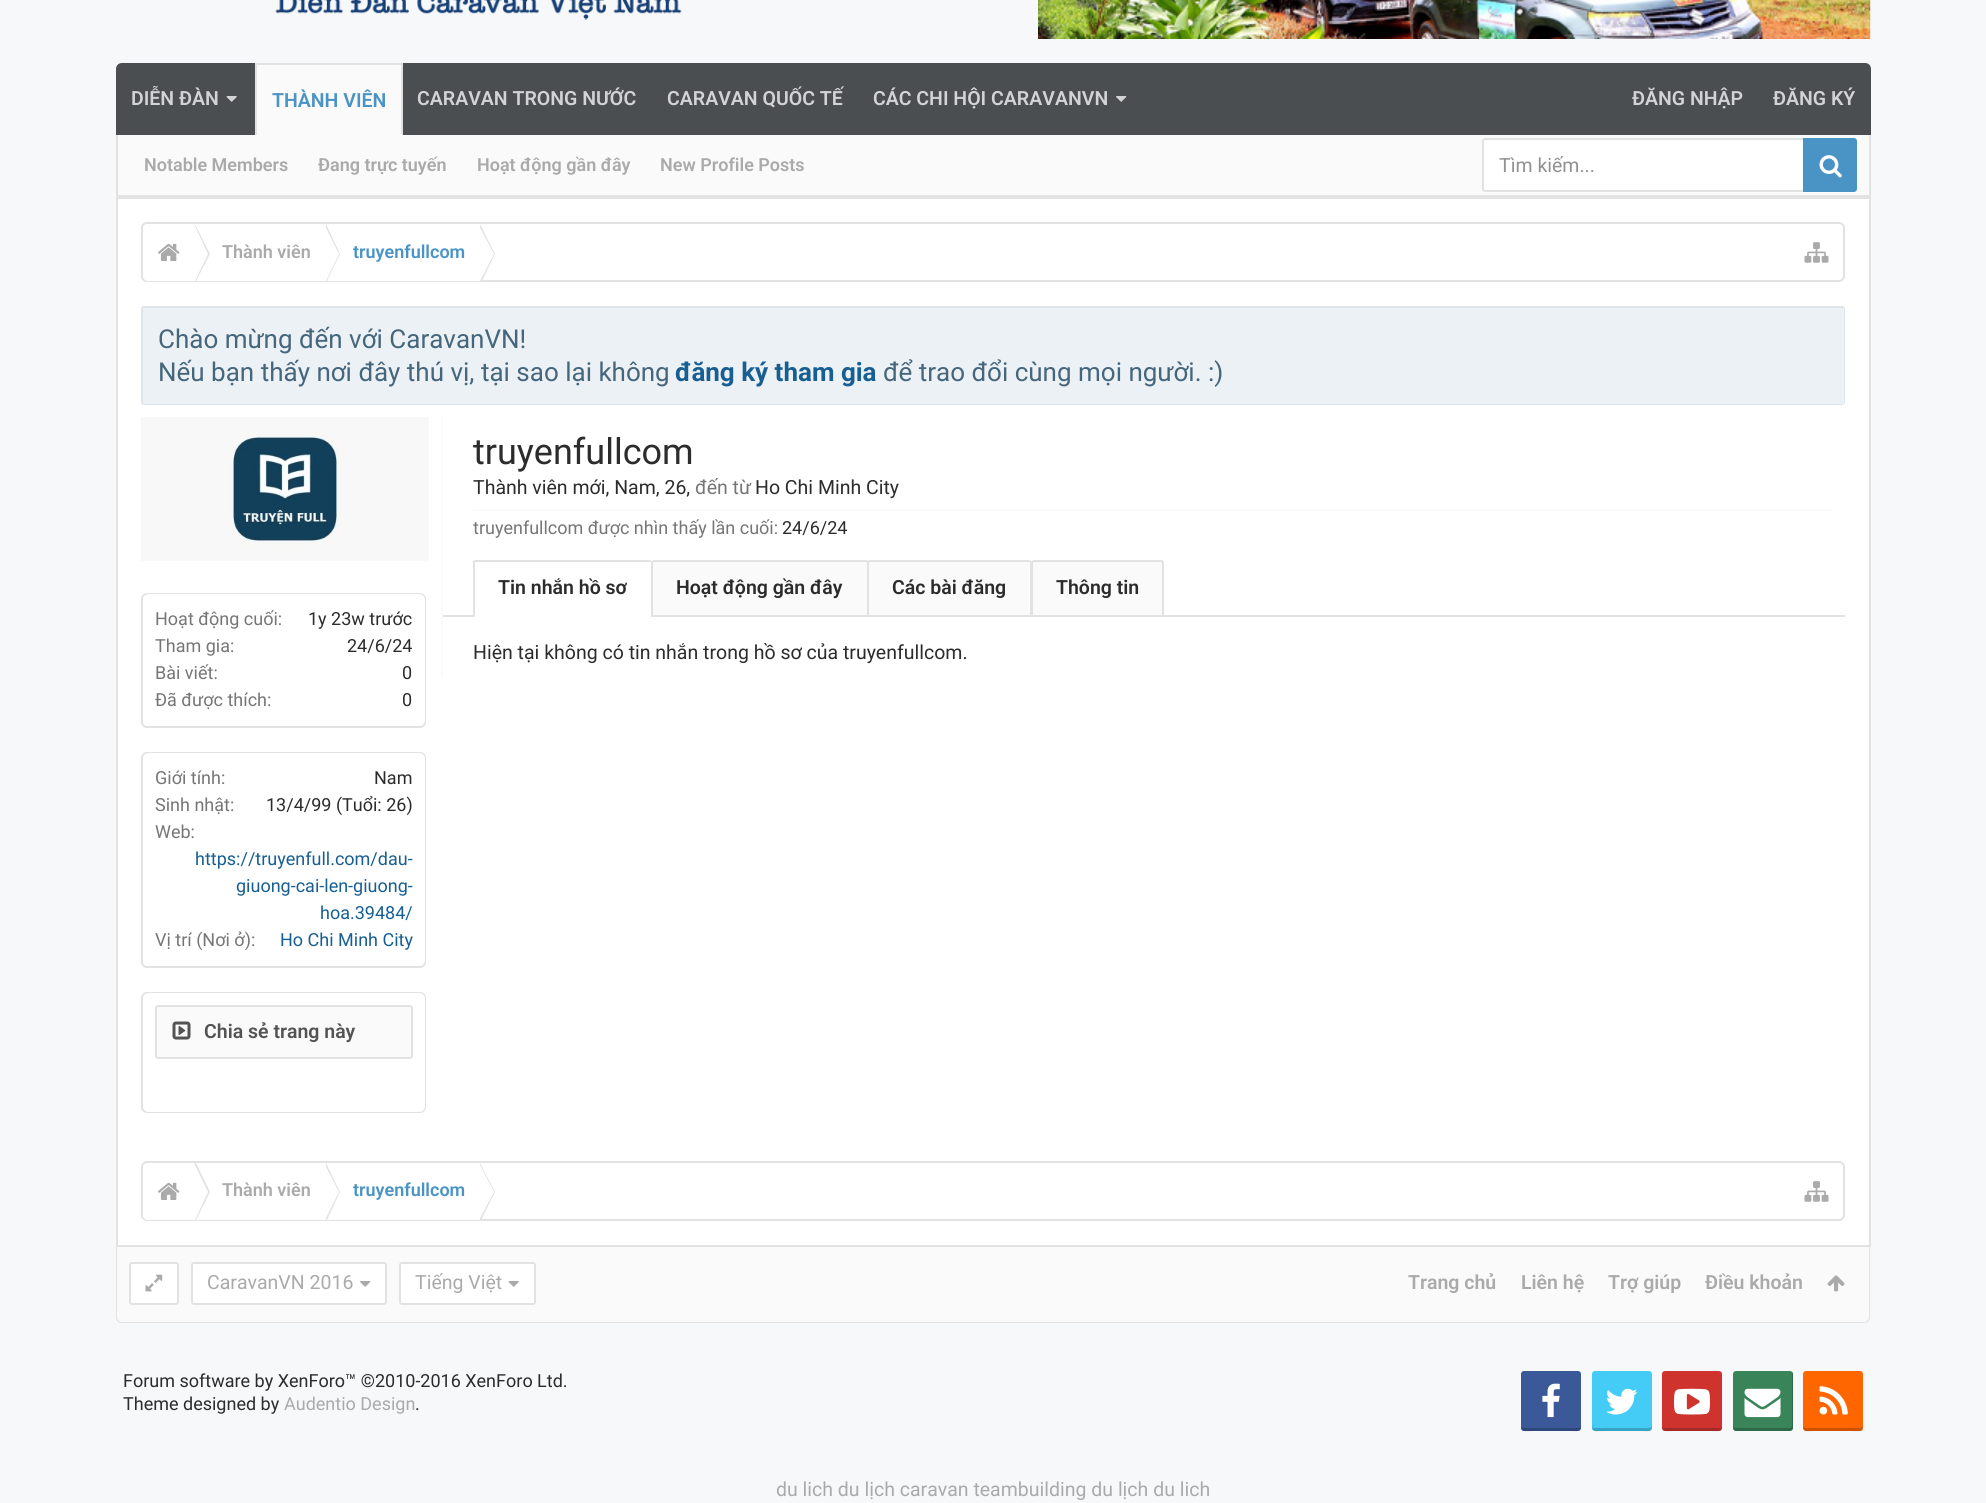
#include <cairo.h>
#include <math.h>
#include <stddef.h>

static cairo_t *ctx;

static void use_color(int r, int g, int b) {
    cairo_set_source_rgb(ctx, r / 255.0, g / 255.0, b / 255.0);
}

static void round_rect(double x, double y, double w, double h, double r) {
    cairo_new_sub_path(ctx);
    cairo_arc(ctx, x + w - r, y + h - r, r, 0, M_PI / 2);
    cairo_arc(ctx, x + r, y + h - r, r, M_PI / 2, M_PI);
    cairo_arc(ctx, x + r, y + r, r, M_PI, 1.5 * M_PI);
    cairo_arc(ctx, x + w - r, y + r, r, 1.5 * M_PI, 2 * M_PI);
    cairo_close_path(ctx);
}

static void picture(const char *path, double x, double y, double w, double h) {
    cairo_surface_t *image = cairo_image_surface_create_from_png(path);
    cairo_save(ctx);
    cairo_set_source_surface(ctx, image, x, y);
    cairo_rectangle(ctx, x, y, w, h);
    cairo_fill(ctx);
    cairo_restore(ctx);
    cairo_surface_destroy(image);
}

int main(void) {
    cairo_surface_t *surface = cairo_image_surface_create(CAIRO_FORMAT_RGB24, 1986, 1503);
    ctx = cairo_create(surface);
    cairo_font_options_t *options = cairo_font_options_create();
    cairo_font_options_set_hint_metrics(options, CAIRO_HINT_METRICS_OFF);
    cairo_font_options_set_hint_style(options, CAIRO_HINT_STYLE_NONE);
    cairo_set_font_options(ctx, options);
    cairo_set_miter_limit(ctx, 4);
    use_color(246, 248, 249);
    cairo_paint(ctx);
    picture("img1.png", 275, 0, 407, 20);
    picture("img2.png", 1038, 0, 833, 39);
    use_color(74, 78, 81);
    cairo_new_path(ctx);
    cairo_move_to(ctx, 122, 63);
    cairo_line_to(ctx, 1865, 63);
    cairo_curve_to(ctx, 1868.5, 63, 1871, 65.5, 1871, 69);
    cairo_line_to(ctx, 1871, 135);
    cairo_line_to(ctx, 116, 135);
    cairo_line_to(ctx, 116, 69);
    cairo_curve_to(ctx, 116, 65.5, 118.5, 63, 122, 63);
    cairo_close_path(ctx);
    cairo_fill(ctx);
    cairo_select_font_face(ctx, "Roboto SemiBold", CAIRO_FONT_SLANT_NORMAL, CAIRO_FONT_WEIGHT_NORMAL);
    cairo_set_font_size(ctx, 19.5);
    use_color(210, 211, 212);
    cairo_move_to(ctx, 131, 105);
    cairo_show_text(ctx, "DIỄN ĐÀN");
    picture("img3.png", 226, 96, 11, 6);
    cairo_move_to(ctx, 417, 105);
    cairo_show_text(ctx, "CARAVAN TRONG NƯỚC");
    cairo_move_to(ctx, 667, 105);
    cairo_show_text(ctx, "CARAVAN QUỐC TẾ");
    cairo_move_to(ctx, 873, 105);
    cairo_show_text(ctx, "CÁC CHI HỘI CARAVANVN");
    picture("img4.png", 1116, 96, 11, 6);
    use_color(250, 250, 250);
    cairo_rectangle(ctx, 257, 65, 144, 69);
    cairo_fill(ctx);
    use_color(226, 226, 226);
    cairo_rectangle(ctx, 255, 63, 147, 2);
    cairo_fill(ctx);
    cairo_rectangle(ctx, 401, 63, 2, 72);
    cairo_fill(ctx);
    use_color(250, 250, 250);
    cairo_rectangle(ctx, 255, 134, 147, 1);
    cairo_fill(ctx);
    use_color(226, 226, 226);
    cairo_rectangle(ctx, 255, 63, 2, 72);
    cairo_fill(ctx);
    use_color(73, 147, 197);
    cairo_move_to(ctx, 272, 107);
    cairo_show_text(ctx, "THÀNH VIÊN");
    use_color(250, 250, 250);
    cairo_rectangle(ctx, 118, 135, 1751, 60);
    cairo_fill(ctx);
    use_color(226, 226, 226);
    cairo_rectangle(ctx, 1869, 135, 2, 62);
    cairo_fill(ctx);
    cairo_rectangle(ctx, 116, 195, 1755, 2);
    cairo_fill(ctx);
    cairo_rectangle(ctx, 116, 135, 2, 62);
    cairo_fill(ctx);
    cairo_set_font_size(ctx, 18);
    use_color(170, 170, 170);
    cairo_move_to(ctx, 144, 171);
    cairo_show_text(ctx, "Notable Members");
    cairo_move_to(ctx, 318, 171);
    cairo_show_text(ctx, "Đang trực tuyến");
    cairo_move_to(ctx, 477, 171);
    cairo_show_text(ctx, "Hoạt động gần đây");
    cairo_move_to(ctx, 660, 171);
    cairo_show_text(ctx, "New Profile Posts");
    use_color(255, 255, 255);
    round_rect(1483, 139, 373, 52, 2);
    cairo_fill_preserve(ctx);
    use_color(226, 226, 226);
    cairo_stroke(ctx);
    cairo_select_font_face(ctx, "Roboto", CAIRO_FONT_SLANT_NORMAL, CAIRO_FONT_WEIGHT_NORMAL);
    cairo_set_font_size(ctx, 19.5);
    use_color(144, 144, 144);
    cairo_move_to(ctx, 1499, 172);
    cairo_show_text(ctx, "Tìm kiếm...");
    use_color(73, 147, 197);
    cairo_new_path(ctx);
    cairo_move_to(ctx, 1803, 138);
    cairo_line_to(ctx, 1854, 138);
    cairo_curve_to(ctx, 1855.5, 138, 1857, 139.5, 1857, 141);
    cairo_line_to(ctx, 1857, 189);
    cairo_curve_to(ctx, 1857, 190.5, 1855.5, 192, 1854, 192);
    cairo_line_to(ctx, 1803, 192);
    cairo_close_path(ctx);
    cairo_fill(ctx);
    picture("img5.png", 1819, 155, 23, 23);
    cairo_select_font_face(ctx, "Roboto SemiBold", CAIRO_FONT_SLANT_NORMAL, CAIRO_FONT_WEIGHT_NORMAL);
    use_color(210, 211, 212);
    cairo_move_to(ctx, 1632, 105);
    cairo_show_text(ctx, "ĐĂNG NHẬP");
    cairo_move_to(ctx, 1773, 105);
    cairo_show_text(ctx, "ĐĂNG KÝ");
    use_color(255, 255, 255);
    cairo_rectangle(ctx, 117, 198, 1753, 1048);
    cairo_fill_preserve(ctx);
    use_color(226, 226, 226);
    cairo_stroke(ctx);
    round_rect(142, 223, 1702, 58, 5);
    cairo_stroke(ctx);
    cairo_save(ctx);
    round_rect(143, 224, 1701, 57, 5);
    cairo_clip(ctx);
    use_color(255, 255, 255);
    cairo_new_path(ctx);
    cairo_move_to(ctx, 149, 224);
    cairo_line_to(ctx, 195, 224);
    cairo_line_to(ctx, 195, 282);
    cairo_line_to(ctx, 149, 282);
    cairo_curve_to(ctx, 145.5, 282, 143, 279.5, 143, 276);
    cairo_line_to(ctx, 143, 230);
    cairo_curve_to(ctx, 143, 226.5, 145.5, 224, 149, 224);
    cairo_close_path(ctx);
    cairo_fill(ctx);
    cairo_restore(ctx);
    picture("img6.png", 158, 243, 22, 18);
    use_color(255, 255, 255);
    cairo_rectangle(ctx, 195, 280, 285, 1);
    cairo_fill(ctx);
    use_color(226, 226, 226);
    cairo_new_path(ctx);
    cairo_move_to(ctx, 196, 281);
    cairo_line_to(ctx, 195, 281);
    cairo_line_to(ctx, 195, 224);
    cairo_line_to(ctx, 210, 254);
    cairo_close_path(ctx);
    cairo_fill(ctx);
    use_color(255, 255, 255);
    cairo_new_path(ctx);
    cairo_move_to(ctx, 195, 281);
    cairo_line_to(ctx, 194, 281);
    cairo_line_to(ctx, 194, 224);
    cairo_line_to(ctx, 208, 254);
    cairo_close_path(ctx);
    cairo_fill(ctx);
    cairo_set_font_size(ctx, 18);
    use_color(170, 170, 170);
    cairo_move_to(ctx, 222, 258);
    cairo_show_text(ctx, "Thành viên");
    use_color(226, 226, 226);
    cairo_new_path(ctx);
    cairo_move_to(ctx, 327, 281);
    cairo_line_to(ctx, 326, 281);
    cairo_line_to(ctx, 326, 224);
    cairo_line_to(ctx, 340, 254);
    cairo_close_path(ctx);
    cairo_fill(ctx);
    use_color(255, 255, 255);
    cairo_new_path(ctx);
    cairo_move_to(ctx, 326, 281);
    cairo_line_to(ctx, 324, 281);
    cairo_line_to(ctx, 324, 224);
    cairo_line_to(ctx, 339, 254);
    cairo_close_path(ctx);
    cairo_fill(ctx);
    use_color(73, 147, 197);
    cairo_move_to(ctx, 353, 258);
    cairo_show_text(ctx, "truyenfullcom");
    use_color(226, 226, 226);
    cairo_new_path(ctx);
    cairo_move_to(ctx, 482, 281);
    cairo_line_to(ctx, 480, 281);
    cairo_line_to(ctx, 480, 224);
    cairo_line_to(ctx, 495, 254);
    cairo_close_path(ctx);
    cairo_fill(ctx);
    use_color(255, 255, 255);
    cairo_new_path(ctx);
    cairo_move_to(ctx, 480, 281);
    cairo_line_to(ctx, 478, 281);
    cairo_line_to(ctx, 478, 224);
    cairo_line_to(ctx, 494, 254);
    cairo_close_path(ctx);
    cairo_fill(ctx);
    picture("img7.png", 1804, 242, 25, 21);
    round_rect(142, 307, 1702, 97, 2);
    use_color(221, 229, 234);
    cairo_stroke(ctx);
    use_color(236, 241, 245);
    cairo_rectangle(ctx, 143, 308, 1701, 96);
    cairo_fill(ctx);
    cairo_select_font_face(ctx, "Roboto", CAIRO_FONT_SLANT_NORMAL, CAIRO_FONT_WEIGHT_NORMAL);
    cairo_set_font_size(ctx, 26);
    use_color(70, 102, 124);
    cairo_move_to(ctx, 158, 348);
    cairo_show_text(ctx, "Chào mừng đến với CaravanVN!");
    cairo_move_to(ctx, 158, 381);
    cairo_show_text(ctx, "Nếu bạn thấy nơi đây thú vị, tại sao lại không");
    cairo_select_font_face(ctx, "Roboto", CAIRO_FONT_SLANT_NORMAL, CAIRO_FONT_WEIGHT_BOLD);
    use_color(23, 95, 146);
    cairo_move_to(ctx, 675, 381);
    cairo_show_text(ctx, "đăng ký tham gia");
    cairo_select_font_face(ctx, "Roboto", CAIRO_FONT_SLANT_NORMAL, CAIRO_FONT_WEIGHT_NORMAL);
    use_color(70, 102, 124);
    cairo_move_to(ctx, 883, 381);
    cairo_show_text(ctx, "để trao đổi cùng mọi người. :)");
    use_color(250, 250, 250);
    cairo_rectangle(ctx, 441, 417, 2, 261);
    cairo_fill(ctx);
    cairo_set_font_size(ctx, 36);
    use_color(44, 44, 44);
    cairo_move_to(ctx, 473, 464);
    cairo_show_text(ctx, "truyenfullcom");
    cairo_set_font_size(ctx, 19.5);
    cairo_move_to(ctx, 473, 494);
    cairo_show_text(ctx, "Thành viên mới, Nam, 26,");
    use_color(118, 118, 118);
    cairo_move_to(ctx, 695, 494);
    cairo_show_text(ctx, "đến từ");
    use_color(44, 44, 44);
    cairo_move_to(ctx, 755, 494);
    cairo_show_text(ctx, "Ho Chi Minh City");
    use_color(250, 250, 250);
    cairo_rectangle(ctx, 473, 509, 1360, 2);
    cairo_fill(ctx);
    cairo_set_font_size(ctx, 18);
    use_color(118, 118, 118);
    cairo_move_to(ctx, 473, 534);
    cairo_show_text(ctx, "truyenfullcom được nhìn thấy lần cuối:");
    use_color(44, 44, 44);
    cairo_move_to(ctx, 782, 534);
    cairo_show_text(ctx, "24/6/24");
    use_color(226, 226, 226);
    cairo_rectangle(ctx, 443, 615, 1402, 2);
    cairo_fill(ctx);
    use_color(255, 255, 255);
    cairo_new_path(ctx);
    cairo_move_to(ctx, 476, 560);
    cairo_line_to(ctx, 650, 560);
    cairo_curve_to(ctx, 651.5, 560, 653, 561.5, 653, 563);
    cairo_line_to(ctx, 653, 617);
    cairo_line_to(ctx, 473, 617);
    cairo_line_to(ctx, 473, 563);
    cairo_curve_to(ctx, 473, 561.5, 474.5, 560, 476, 560);
    cairo_close_path(ctx);
    cairo_fill(ctx);
    use_color(226, 226, 226);
    cairo_rectangle(ctx, 474, 560, 177, 2);
    cairo_fill(ctx);
    cairo_rectangle(ctx, 473, 561, 2, 56);
    cairo_fill(ctx);
    cairo_select_font_face(ctx, "Roboto SemiBold", CAIRO_FONT_SLANT_NORMAL, CAIRO_FONT_WEIGHT_NORMAL);
    cairo_set_font_size(ctx, 19.5);
    use_color(44, 44, 44);
    cairo_move_to(ctx, 498, 594);
    cairo_show_text(ctx, "Tin nhắn hồ sơ");
    use_color(250, 250, 250);
    cairo_new_path(ctx);
    cairo_move_to(ctx, 654, 561);
    cairo_line_to(ctx, 866, 561);
    cairo_curve_to(ctx, 867, 561, 868, 562, 868, 563);
    cairo_line_to(ctx, 868, 616);
    cairo_line_to(ctx, 652, 616);
    cairo_line_to(ctx, 652, 563);
    cairo_curve_to(ctx, 652, 562, 653, 561, 654, 561);
    cairo_close_path(ctx);
    cairo_fill_preserve(ctx);
    use_color(226, 226, 226);
    cairo_stroke(ctx);
    use_color(44, 44, 44);
    cairo_move_to(ctx, 676, 594);
    cairo_show_text(ctx, "Hoạt động gần đây");
    use_color(250, 250, 250);
    cairo_new_path(ctx);
    cairo_move_to(ctx, 870, 561);
    cairo_line_to(ctx, 1029, 561);
    cairo_curve_to(ctx, 1030, 561, 1031, 562, 1031, 563);
    cairo_line_to(ctx, 1031, 616);
    cairo_line_to(ctx, 868, 616);
    cairo_line_to(ctx, 868, 563);
    cairo_curve_to(ctx, 868, 562, 869, 561, 870, 561);
    cairo_close_path(ctx);
    cairo_fill_preserve(ctx);
    use_color(226, 226, 226);
    cairo_stroke(ctx);
    use_color(44, 44, 44);
    cairo_move_to(ctx, 892, 594);
    cairo_show_text(ctx, "Các bài đăng");
    use_color(250, 250, 250);
    cairo_new_path(ctx);
    cairo_move_to(ctx, 1034, 561);
    cairo_line_to(ctx, 1161, 561);
    cairo_curve_to(ctx, 1162, 561, 1163, 562, 1163, 563);
    cairo_line_to(ctx, 1163, 616);
    cairo_line_to(ctx, 1032, 616);
    cairo_line_to(ctx, 1032, 563);
    cairo_curve_to(ctx, 1032, 562, 1033, 561, 1034, 561);
    cairo_close_path(ctx);
    cairo_fill_preserve(ctx);
    use_color(226, 226, 226);
    cairo_stroke(ctx);
    use_color(44, 44, 44);
    cairo_move_to(ctx, 1056, 594);
    cairo_show_text(ctx, "Thông tin");
    cairo_select_font_face(ctx, "Roboto", CAIRO_FONT_SLANT_NORMAL, CAIRO_FONT_WEIGHT_NORMAL);
    cairo_move_to(ctx, 473, 659);
    cairo_show_text(ctx, "Hiện tại không có tin nhắn trong hồ sơ của truyenfullcom.");
    picture("img8.png", 141, 417, 288, 144);
    round_rect(142, 594, 283, 133, 5);
    use_color(226, 226, 226);
    cairo_stroke(ctx);
    use_color(255, 255, 255);
    round_rect(143, 594, 282, 132, 6);
    cairo_fill(ctx);
    cairo_set_font_size(ctx, 18);
    use_color(118, 118, 118);
    cairo_move_to(ctx, 155, 625);
    cairo_show_text(ctx, "Hoạt động cuối:");
    use_color(44, 44, 44);
    cairo_move_to(ctx, 308, 625);
    cairo_show_text(ctx, "1y 23w trước");
    use_color(118, 118, 118);
    cairo_move_to(ctx, 155, 652);
    cairo_show_text(ctx, "Tham gia:");
    use_color(44, 44, 44);
    cairo_move_to(ctx, 347, 652);
    cairo_show_text(ctx, "24/6/24");
    use_color(118, 118, 118);
    cairo_move_to(ctx, 155, 679);
    cairo_show_text(ctx, "Bài viết:");
    use_color(44, 44, 44);
    cairo_move_to(ctx, 402, 679);
    cairo_show_text(ctx, "0");
    use_color(118, 118, 118);
    cairo_move_to(ctx, 155, 706);
    cairo_show_text(ctx, "Đã được thích:");
    use_color(44, 44, 44);
    cairo_move_to(ctx, 402, 706);
    cairo_show_text(ctx, "0");
    round_rect(142, 753, 283, 214, 5);
    use_color(226, 226, 226);
    cairo_stroke(ctx);
    use_color(255, 255, 255);
    round_rect(143, 753, 282, 213, 6);
    cairo_fill(ctx);
    use_color(118, 118, 118);
    cairo_move_to(ctx, 155, 784);
    cairo_show_text(ctx, "Giới tính:");
    use_color(44, 44, 44);
    cairo_move_to(ctx, 374, 784);
    cairo_show_text(ctx, "Nam");
    use_color(118, 118, 118);
    cairo_move_to(ctx, 155, 811);
    cairo_show_text(ctx, "Sinh nhật:");
    use_color(44, 44, 44);
    cairo_move_to(ctx, 266, 811);
    cairo_show_text(ctx, "13/4/99 (Tuổi: 26)");
    use_color(118, 118, 118);
    cairo_move_to(ctx, 155, 838);
    cairo_show_text(ctx, "Web:");
    use_color(23, 95, 146);
    cairo_move_to(ctx, 195, 865);
    cairo_show_text(ctx, "https://truyenfull.com/dau-");
    cairo_move_to(ctx, 236, 892);
    cairo_show_text(ctx, "giuong-cai-len-giuong-");
    cairo_move_to(ctx, 320, 919);
    cairo_show_text(ctx, "hoa.39484/");
    use_color(118, 118, 118);
    cairo_move_to(ctx, 155, 946);
    cairo_show_text(ctx, "Vị trí (Nơi ở):");
    use_color(23, 95, 146);
    cairo_move_to(ctx, 280, 946);
    cairo_show_text(ctx, "Ho Chi Minh City");
    round_rect(142, 993, 283, 119, 5);
    use_color(226, 226, 226);
    cairo_stroke(ctx);
    use_color(255, 255, 255);
    round_rect(143, 993, 282, 119, 6);
    cairo_fill(ctx);
    use_color(250, 250, 250);
    round_rect(156, 1006, 256, 52, 2);
    cairo_fill_preserve(ctx);
    use_color(226, 226, 226);
    cairo_stroke(ctx);
    picture("img9.png", 172, 1021, 19, 19);
    cairo_select_font_face(ctx, "Roboto SemiBold", CAIRO_FONT_SLANT_NORMAL, CAIRO_FONT_WEIGHT_NORMAL);
    cairo_set_font_size(ctx, 19.5);
    use_color(83, 83, 83);
    cairo_move_to(ctx, 204, 1038);
    cairo_show_text(ctx, "Chia sẻ trang này");
    round_rect(142, 1162, 1702, 58, 5);
    use_color(226, 226, 226);
    cairo_stroke(ctx);
    cairo_save(ctx);
    round_rect(143, 1163, 1701, 57, 5);
    cairo_clip(ctx);
    use_color(255, 255, 255);
    cairo_new_path(ctx);
    cairo_move_to(ctx, 149, 1163);
    cairo_line_to(ctx, 195, 1163);
    cairo_line_to(ctx, 195, 1221);
    cairo_line_to(ctx, 149, 1221);
    cairo_curve_to(ctx, 145.5, 1221, 143, 1218.5, 143, 1215);
    cairo_line_to(ctx, 143, 1169);
    cairo_curve_to(ctx, 143, 1165.5, 145.5, 1163, 149, 1163);
    cairo_close_path(ctx);
    cairo_fill(ctx);
    cairo_restore(ctx);
    picture("img6.png", 158, 1182, 22, 18);
    use_color(255, 255, 255);
    cairo_rectangle(ctx, 196, 1219, 284, 1);
    cairo_fill(ctx);
    use_color(226, 226, 226);
    cairo_new_path(ctx);
    cairo_move_to(ctx, 196, 1163);
    cairo_line_to(ctx, 210, 1192);
    cairo_line_to(ctx, 196, 1220);
    cairo_line_to(ctx, 195, 1220);
    cairo_line_to(ctx, 195, 1163);
    cairo_close_path(ctx);
    cairo_fill(ctx);
    use_color(255, 255, 255);
    cairo_new_path(ctx);
    cairo_move_to(ctx, 194, 1163);
    cairo_line_to(ctx, 208, 1192);
    cairo_line_to(ctx, 195, 1220);
    cairo_line_to(ctx, 194, 1220);
    cairo_close_path(ctx);
    cairo_fill(ctx);
    cairo_set_font_size(ctx, 18);
    use_color(170, 170, 170);
    cairo_move_to(ctx, 222, 1196);
    cairo_show_text(ctx, "Thành viên");
    use_color(226, 226, 226);
    cairo_new_path(ctx);
    cairo_move_to(ctx, 326, 1163);
    cairo_line_to(ctx, 340, 1192);
    cairo_line_to(ctx, 327, 1220);
    cairo_line_to(ctx, 326, 1220);
    cairo_close_path(ctx);
    cairo_fill(ctx);
    use_color(255, 255, 255);
    cairo_new_path(ctx);
    cairo_move_to(ctx, 324, 1163);
    cairo_line_to(ctx, 339, 1192);
    cairo_line_to(ctx, 325, 1220);
    cairo_line_to(ctx, 324, 1220);
    cairo_close_path(ctx);
    cairo_fill(ctx);
    use_color(73, 147, 197);
    cairo_move_to(ctx, 353, 1196);
    cairo_show_text(ctx, "truyenfullcom");
    use_color(226, 226, 226);
    cairo_new_path(ctx);
    cairo_move_to(ctx, 480, 1163);
    cairo_line_to(ctx, 495, 1192);
    cairo_line_to(ctx, 481, 1220);
    cairo_line_to(ctx, 480, 1220);
    cairo_close_path(ctx);
    cairo_fill(ctx);
    use_color(255, 255, 255);
    cairo_new_path(ctx);
    cairo_move_to(ctx, 479, 1163);
    cairo_line_to(ctx, 494, 1192);
    cairo_line_to(ctx, 479, 1220);
    cairo_line_to(ctx, 478, 1220);
    cairo_line_to(ctx, 478, 1163);
    cairo_close_path(ctx);
    cairo_fill(ctx);
    picture("img7.png", 1804, 1181, 25, 21);
    use_color(250, 250, 250);
    cairo_new_path(ctx);
    cairo_move_to(ctx, 117, 1247);
    cairo_line_to(ctx, 1869, 1247);
    cairo_line_to(ctx, 1869, 1317);
    cairo_curve_to(ctx, 1869, 1320, 1867, 1322, 1864, 1322);
    cairo_line_to(ctx, 122, 1322);
    cairo_curve_to(ctx, 119, 1322, 117, 1320, 117, 1317);
    cairo_close_path(ctx);
    cairo_fill(ctx);
    use_color(226, 226, 226);
    cairo_set_fill_rule(ctx, CAIRO_FILL_RULE_EVEN_ODD);
    cairo_new_path(ctx);
    cairo_move_to(ctx, 116, 1246);
    cairo_line_to(ctx, 1870, 1246);
    cairo_line_to(ctx, 1870, 1317);
    cairo_curve_to(ctx, 1870, 1320, 1868, 1323, 1864, 1323);
    cairo_line_to(ctx, 122, 1323);
    cairo_curve_to(ctx, 118, 1323, 116, 1320, 116, 1317);
    cairo_close_path(ctx);
    cairo_move_to(ctx, 117, 1246);
    cairo_line_to(ctx, 1869, 1246);
    cairo_line_to(ctx, 1869, 1317);
    cairo_curve_to(ctx, 1869, 1319, 1867, 1322, 1864, 1322);
    cairo_line_to(ctx, 122, 1322);
    cairo_curve_to(ctx, 119, 1322, 117, 1319, 117, 1317);
    cairo_close_path(ctx);
    cairo_fill(ctx);
    use_color(255, 255, 255);
    round_rect(130, 1263, 48, 41, 2);
    cairo_fill_preserve(ctx);
    use_color(226, 226, 226);
    cairo_stroke(ctx);
    picture("img10.png", 145, 1274, 18, 18);
    use_color(255, 255, 255);
    round_rect(192, 1263, 194, 41, 2);
    cairo_fill_preserve(ctx);
    use_color(226, 226, 226);
    cairo_stroke(ctx);
    cairo_select_font_face(ctx, "Roboto", CAIRO_FONT_SLANT_NORMAL, CAIRO_FONT_WEIGHT_NORMAL);
    cairo_set_font_size(ctx, 19.5);
    use_color(170, 170, 170);
    cairo_move_to(ctx, 207, 1289);
    cairo_show_text(ctx, "CaravanVN 2016");
    picture("img11.png", 360, 1281, 11, 6);
    use_color(255, 255, 255);
    round_rect(400, 1263, 135, 41, 2);
    cairo_fill_preserve(ctx);
    use_color(226, 226, 226);
    cairo_stroke(ctx);
    use_color(170, 170, 170);
    cairo_move_to(ctx, 415, 1289);
    cairo_show_text(ctx, "Tiếng Việt");
    picture("img12.png", 508, 1281, 11, 6);
    cairo_select_font_face(ctx, "Roboto SemiBold", CAIRO_FONT_SLANT_NORMAL, CAIRO_FONT_WEIGHT_NORMAL);
    cairo_move_to(ctx, 1408, 1289);
    cairo_show_text(ctx, "Trang chủ");
    cairo_move_to(ctx, 1521, 1289);
    cairo_show_text(ctx, "Liên hệ");
    cairo_move_to(ctx, 1608, 1289);
    cairo_show_text(ctx, "Trợ giúp");
    cairo_move_to(ctx, 1705, 1289);
    cairo_show_text(ctx, "Điều khoản");
    picture("img13.png", 1827, 1275, 18, 17);
    cairo_select_font_face(ctx, "Roboto", CAIRO_FONT_SLANT_NORMAL, CAIRO_FONT_WEIGHT_NORMAL);
    cairo_set_font_size(ctx, 18);
    use_color(44, 44, 44);
    cairo_move_to(ctx, 123, 1387);
    cairo_show_text(ctx, "Forum software by XenForo™ ©2010-2016 XenForo Ltd.");
    cairo_move_to(ctx, 123, 1410);
    cairo_show_text(ctx, "Theme designed by");
    use_color(170, 170, 170);
    cairo_move_to(ctx, 284, 1410);
    cairo_show_text(ctx, "Audentio Design");
    use_color(44, 44, 44);
    cairo_move_to(ctx, 415, 1410);
    cairo_show_text(ctx, ".");
    use_color(59, 89, 152);
    round_rect(1521, 1371, 60, 60, 3);
    cairo_fill(ctx);
    cairo_set_source_rgba(ctx, 0, 0, 0, 0.2);
    cairo_set_fill_rule(ctx, CAIRO_FILL_RULE_WINDING);
    cairo_new_path(ctx);
    cairo_move_to(ctx, 1521, 1425);
    cairo_curve_to(ctx, 1521, 1433, 1524, 1431, 1533, 1431);
    cairo_line_to(ctx, 1569, 1431);
    cairo_curve_to(ctx, 1578, 1431, 1581, 1433, 1581, 1425);
    cairo_curve_to(ctx, 1581, 1427, 1580, 1428, 1578, 1428);
    cairo_line_to(ctx, 1524, 1428);
    cairo_curve_to(ctx, 1522, 1428, 1521, 1427, 1521, 1425);
    cairo_close_path(ctx);
    cairo_fill(ctx);
    picture("img14.png", 1542, 1383, 18, 35);
    use_color(68, 204, 246);
    round_rect(1592, 1371, 60, 60, 3);
    cairo_fill(ctx);
    cairo_set_source_rgba(ctx, 0, 0, 0, 0.2);
    cairo_new_path(ctx);
    cairo_move_to(ctx, 1592, 1425);
    cairo_curve_to(ctx, 1592, 1433, 1595, 1431, 1604, 1431);
    cairo_line_to(ctx, 1640, 1431);
    cairo_curve_to(ctx, 1649, 1431, 1652, 1433, 1652, 1425);
    cairo_curve_to(ctx, 1652, 1427, 1650, 1428, 1648, 1428);
    cairo_line_to(ctx, 1594, 1428);
    cairo_curve_to(ctx, 1593, 1428, 1592, 1427, 1592, 1425);
    cairo_close_path(ctx);
    cairo_fill(ctx);
    picture("img15.png", 1606, 1388, 32, 27);
    use_color(206, 51, 45);
    round_rect(1662, 1371, 60, 60, 3);
    cairo_fill(ctx);
    cairo_set_source_rgba(ctx, 0, 0, 0, 0.2);
    cairo_new_path(ctx);
    cairo_move_to(ctx, 1662, 1425);
    cairo_curve_to(ctx, 1662, 1433, 1665, 1431, 1674, 1431);
    cairo_line_to(ctx, 1710, 1431);
    cairo_curve_to(ctx, 1719, 1431, 1722, 1433, 1722, 1425);
    cairo_curve_to(ctx, 1722, 1427, 1721, 1428, 1719, 1428);
    cairo_line_to(ctx, 1665, 1428);
    cairo_curve_to(ctx, 1663, 1428, 1662, 1427, 1662, 1425);
    cairo_close_path(ctx);
    cairo_fill(ctx);
    picture("img16.png", 1674, 1388, 36, 27);
    use_color(58, 132, 90);
    round_rect(1733, 1371, 60, 60, 3);
    cairo_fill(ctx);
    cairo_set_source_rgba(ctx, 0, 0, 0, 0.2);
    cairo_new_path(ctx);
    cairo_move_to(ctx, 1733, 1427);
    cairo_curve_to(ctx, 1734, 1428, 1735, 1428, 1736, 1428);
    cairo_line_to(ctx, 1790, 1428);
    cairo_curve_to(ctx, 1791, 1428, 1792, 1427, 1792, 1425);
    cairo_line_to(ctx, 1792, 1372);
    cairo_curve_to(ctx, 1793, 1372, 1793, 1373, 1793, 1374);
    cairo_line_to(ctx, 1793, 1428);
    cairo_curve_to(ctx, 1793, 1430, 1792, 1431, 1790, 1431);
    cairo_line_to(ctx, 1736, 1431);
    cairo_curve_to(ctx, 1734, 1431, 1733, 1430, 1733, 1428);
    cairo_close_path(ctx);
    cairo_fill(ctx);
    picture("img17.png", 1744, 1388, 37, 30);
    use_color(255, 102, 0);
    round_rect(1803, 1371, 60, 60, 3);
    cairo_fill(ctx);
    cairo_set_source_rgba(ctx, 0, 0, 0, 0.2);
    cairo_new_path(ctx);
    cairo_move_to(ctx, 1803, 1425);
    cairo_curve_to(ctx, 1803, 1433, 1806, 1431, 1815, 1431);
    cairo_line_to(ctx, 1851, 1431);
    cairo_curve_to(ctx, 1860, 1431, 1863, 1433, 1863, 1425);
    cairo_curve_to(ctx, 1863, 1427, 1862, 1428, 1860, 1428);
    cairo_line_to(ctx, 1806, 1428);
    cairo_curve_to(ctx, 1804, 1428, 1803, 1427, 1803, 1425);
    cairo_close_path(ctx);
    cairo_fill(ctx);
    picture("img18.png", 1819, 1386, 29, 29);
    cairo_set_font_size(ctx, 19.5);
    use_color(170, 170, 170);
    cairo_move_to(ctx, 776, 1496);
    cairo_show_text(ctx, "du lich du lịch caravan teambuilding du lịch du lich");
    cairo_surface_write_to_png(surface, "result.png");
    cairo_font_options_destroy(options);
    cairo_destroy(ctx);
    cairo_surface_destroy(surface);
    return 0;
}
